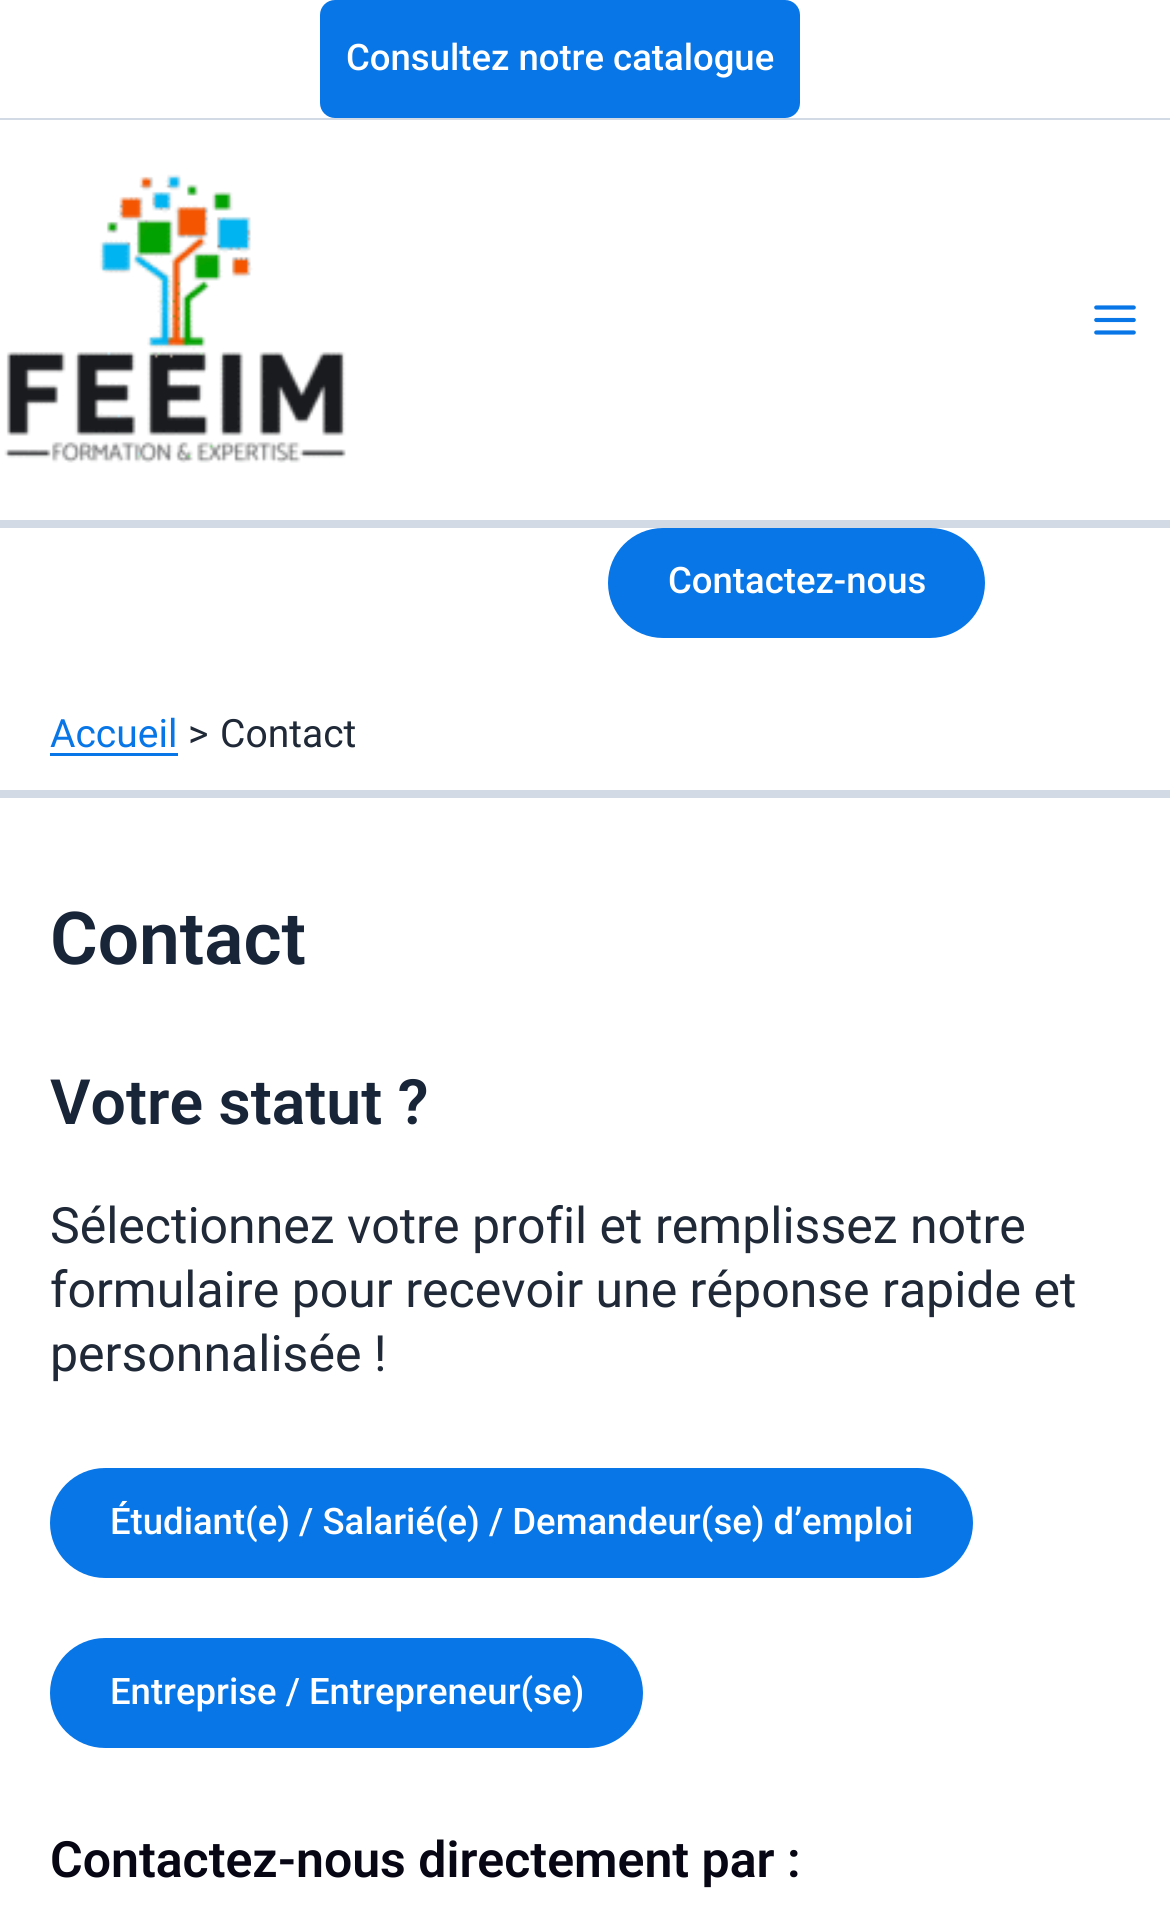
#include <cairo.h>
#include <math.h>
#include <stddef.h>

static cairo_t *ctx;

static void use_color(int r, int g, int b) {
    cairo_set_source_rgb(ctx, r / 255.0, g / 255.0, b / 255.0);
}

static void round_rect(double x, double y, double w, double h, double r) {
    cairo_new_sub_path(ctx);
    cairo_arc(ctx, x + w - r, y + h - r, r, 0, M_PI / 2);
    cairo_arc(ctx, x + r, y + h - r, r, M_PI / 2, M_PI);
    cairo_arc(ctx, x + r, y + r, r, M_PI, 1.5 * M_PI);
    cairo_arc(ctx, x + w - r, y + r, r, 1.5 * M_PI, 2 * M_PI);
    cairo_close_path(ctx);
}

static void picture(const char *path, double x, double y, double w, double h) {
    cairo_surface_t *image = cairo_image_surface_create_from_png(path);
    cairo_save(ctx);
    cairo_set_source_surface(ctx, image, x, y);
    cairo_rectangle(ctx, x, y, w, h);
    cairo_fill(ctx);
    cairo_restore(ctx);
    cairo_surface_destroy(image);
}

int main(void) {
    cairo_surface_t *surface = cairo_image_surface_create(CAIRO_FORMAT_RGB24, 1170, 1932);
    ctx = cairo_create(surface);
    cairo_font_options_t *options = cairo_font_options_create();
    cairo_font_options_set_hint_metrics(options, CAIRO_HINT_METRICS_OFF);
    cairo_font_options_set_hint_style(options, CAIRO_HINT_STYLE_NONE);
    cairo_set_font_options(ctx, options);
    cairo_set_miter_limit(ctx, 4);
    use_color(255, 255, 255);
    cairo_paint(ctx);
    use_color(209, 218, 229);
    cairo_rectangle(ctx, 0, 118, 1170, 2);
    cairo_fill(ctx);
    use_color(8, 118, 231);
    round_rect(325, 5, 470, 108, 10);
    cairo_fill_preserve(ctx);
    cairo_set_line_width(ctx, 10);
    cairo_stroke(ctx);
    cairo_select_font_face(ctx, "Roboto Medium", CAIRO_FONT_SLANT_NORMAL, CAIRO_FONT_WEIGHT_NORMAL);
    cairo_set_font_size(ctx, 36.5);
    use_color(255, 255, 255);
    cairo_move_to(ctx, 346, 70);
    cairo_show_text(ctx, "Consultez notre catalogue");
    use_color(209, 218, 229);
    cairo_rectangle(ctx, 0, 520, 1170, 8);
    cairo_fill(ctx);
    picture("img1.png", 4, 174, 342, 289);
    picture("img2.png", 1094, 305, 42, 30);
    use_color(8, 118, 231);
    round_rect(608, 528, 377, 110, 55);
    cairo_fill(ctx);
    use_color(255, 255, 255);
    cairo_move_to(ctx, 668, 593);
    cairo_show_text(ctx, "Contactez-nous");
    use_color(209, 218, 229);
    cairo_rectangle(ctx, 0, 790, 1170, 8);
    cairo_fill(ctx);
    cairo_select_font_face(ctx, "Roboto", CAIRO_FONT_SLANT_NORMAL, CAIRO_FONT_WEIGHT_NORMAL);
    cairo_set_font_size(ctx, 39);
    use_color(8, 118, 231);
    cairo_move_to(ctx, 50, 747);
    cairo_show_text(ctx, "Accueil");
    cairo_rectangle(ctx, 50, 753, 128, 3);
    cairo_fill(ctx);
    use_color(31, 41, 55);
    cairo_move_to(ctx, 188, 747);
    cairo_show_text(ctx, ">");
    cairo_move_to(ctx, 220, 747);
    cairo_show_text(ctx, "Contact");
    cairo_select_font_face(ctx, "Roboto SemiBold", CAIRO_FONT_SLANT_NORMAL, CAIRO_FONT_WEIGHT_NORMAL);
    cairo_set_font_size(ctx, 73);
    use_color(24, 36, 56);
    cairo_move_to(ctx, 50, 964);
    cairo_show_text(ctx, "Contact");
    cairo_set_font_size(ctx, 62.5);
    cairo_move_to(ctx, 50, 1124);
    cairo_show_text(ctx, "Votre statut ?");
    cairo_select_font_face(ctx, "Roboto", CAIRO_FONT_SLANT_NORMAL, CAIRO_FONT_WEIGHT_NORMAL);
    cairo_set_font_size(ctx, 50);
    use_color(31, 41, 55);
    cairo_move_to(ctx, 50, 1243);
    cairo_show_text(ctx, "Sélectionnez votre profil et remplissez notre");
    cairo_move_to(ctx, 50, 1307);
    cairo_show_text(ctx, "formulaire pour recevoir une réponse rapide et");
    cairo_move_to(ctx, 50, 1371);
    cairo_show_text(ctx, "personnalisée !");
    use_color(8, 118, 231);
    round_rect(50, 1468, 923, 110, 55);
    cairo_fill(ctx);
    cairo_select_font_face(ctx, "Roboto Medium", CAIRO_FONT_SLANT_NORMAL, CAIRO_FONT_WEIGHT_NORMAL);
    cairo_set_font_size(ctx, 36.5);
    use_color(255, 255, 255);
    cairo_move_to(ctx, 110, 1534);
    cairo_show_text(ctx, "Étudiant(e) / Salarié(e) / Demandeur(se) d’emploi");
    use_color(8, 118, 231);
    round_rect(50, 1638, 593, 110, 55);
    cairo_fill(ctx);
    use_color(255, 255, 255);
    cairo_move_to(ctx, 110, 1704);
    cairo_show_text(ctx, "Entreprise / Entrepreneur(se)");
    cairo_select_font_face(ctx, "Roboto SemiBold", CAIRO_FONT_SLANT_NORMAL, CAIRO_FONT_WEIGHT_NORMAL);
    cairo_set_font_size(ctx, 50);
    use_color(7, 6, 20);
    cairo_move_to(ctx, 50, 1877);
    cairo_show_text(ctx, "Contactez-nous directement par :");
    cairo_surface_write_to_png(surface, "result.png");
    cairo_font_options_destroy(options);
    cairo_destroy(ctx);
    cairo_surface_destroy(surface);
    return 0;
}
